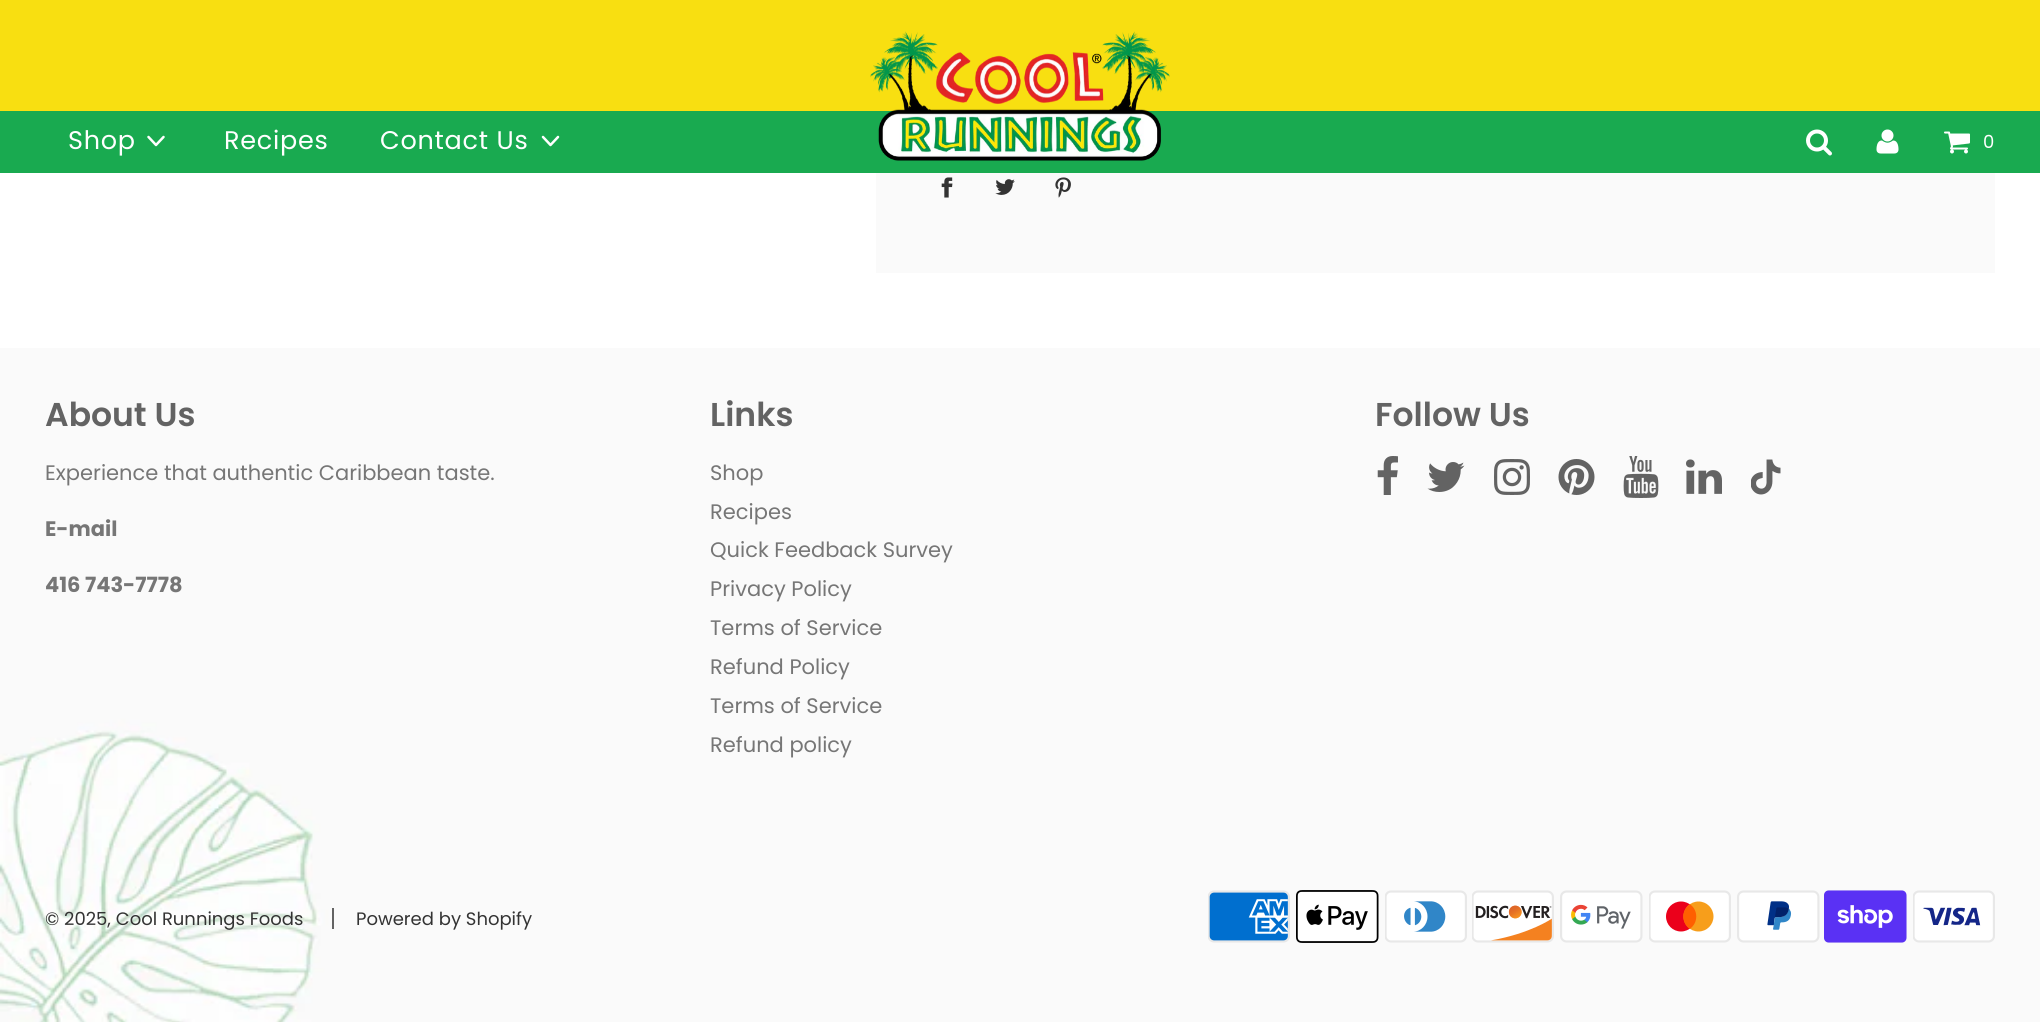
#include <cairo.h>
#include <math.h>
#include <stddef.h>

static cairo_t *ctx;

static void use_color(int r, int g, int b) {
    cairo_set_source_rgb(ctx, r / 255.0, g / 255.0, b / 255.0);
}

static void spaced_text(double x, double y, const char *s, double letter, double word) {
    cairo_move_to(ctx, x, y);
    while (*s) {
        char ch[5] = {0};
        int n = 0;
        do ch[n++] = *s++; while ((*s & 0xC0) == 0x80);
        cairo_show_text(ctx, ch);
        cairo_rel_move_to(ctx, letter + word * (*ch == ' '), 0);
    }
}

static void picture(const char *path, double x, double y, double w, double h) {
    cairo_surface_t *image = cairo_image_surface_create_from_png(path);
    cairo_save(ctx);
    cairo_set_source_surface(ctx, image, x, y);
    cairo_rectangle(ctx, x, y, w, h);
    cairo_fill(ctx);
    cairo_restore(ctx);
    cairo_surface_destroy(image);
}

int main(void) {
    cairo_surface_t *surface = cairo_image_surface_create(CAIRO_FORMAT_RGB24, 2040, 1022);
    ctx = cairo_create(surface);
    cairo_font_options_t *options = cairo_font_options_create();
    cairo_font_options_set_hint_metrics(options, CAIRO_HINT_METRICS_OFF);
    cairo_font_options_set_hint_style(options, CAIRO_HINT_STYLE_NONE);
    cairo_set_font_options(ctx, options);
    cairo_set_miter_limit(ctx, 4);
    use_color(255, 255, 255);
    cairo_paint(ctx);
    use_color(25, 170, 80);
    cairo_rectangle(ctx, 0, 111, 2040, 62);
    cairo_fill(ctx);
    use_color(248, 223, 17);
    cairo_rectangle(ctx, 0, 0, 2040, 111);
    cairo_fill(ctx);
    cairo_select_font_face(ctx, "Poppins", CAIRO_FONT_SLANT_NORMAL, CAIRO_FONT_WEIGHT_NORMAL);
    cairo_set_font_size(ctx, 25.5);
    use_color(255, 255, 255);
    spaced_text(68, 149, "Shop", 0.75, 0);
    cairo_new_path(ctx);
    cairo_move_to(ctx, 148.5, 137);
    cairo_line_to(ctx, 156, 145);
    cairo_line_to(ctx, 163.5, 137);
    cairo_set_line_width(ctx, 2.5);
    cairo_set_line_cap(ctx, CAIRO_LINE_CAP_ROUND);
    cairo_set_line_join(ctx, CAIRO_LINE_JOIN_ROUND);
    cairo_stroke(ctx);
    spaced_text(224, 149, "Recipes", 0.75, 0);
    spaced_text(380, 149, "Contact Us", 0.75, 0);
    cairo_new_path(ctx);
    cairo_move_to(ctx, 543, 137);
    cairo_line_to(ctx, 550.5, 145);
    cairo_line_to(ctx, 558, 137);
    cairo_stroke(ctx);
    picture("img1.png", 870, 31, 300, 130);
    picture("img2.png", 1806, 129, 26, 27);
    picture("img3.png", 1876, 129, 23, 25);
    picture("img4.png", 1944, 131, 26, 23);
    cairo_set_font_size(ctx, 18);
    spaced_text(1983, 148, "0", 0.75, 0);
    use_color(250, 250, 250);
    cairo_rectangle(ctx, 876, 173, 1119, 100);
    cairo_fill(ctx);
    picture("img5.png", 941, 177, 12, 21);
    picture("img6.png", 995, 179, 20, 16);
    picture("img7.png", 1055, 177, 16, 21);
    picture("img8.png", 0, 348, 2040, 674);
    cairo_select_font_face(ctx, "Poppins SemiBold", CAIRO_FONT_SLANT_NORMAL, CAIRO_FONT_WEIGHT_NORMAL);
    cairo_set_font_size(ctx, 33);
    use_color(99, 99, 99);
    cairo_move_to(ctx, 45, 426);
    cairo_show_text(ctx, "About Us");
    cairo_select_font_face(ctx, "Poppins", CAIRO_FONT_SLANT_NORMAL, CAIRO_FONT_WEIGHT_NORMAL);
    cairo_set_font_size(ctx, 21);
    use_color(118, 118, 118);
    cairo_move_to(ctx, 45, 480);
    cairo_show_text(ctx, "Experience that authentic Caribbean taste.");
    cairo_select_font_face(ctx, "Poppins", CAIRO_FONT_SLANT_NORMAL, CAIRO_FONT_WEIGHT_BOLD);
    cairo_move_to(ctx, 45, 536);
    cairo_show_text(ctx, "E-mail");
    cairo_move_to(ctx, 45, 592);
    cairo_show_text(ctx, "416 743-7778");
    cairo_select_font_face(ctx, "Poppins SemiBold", CAIRO_FONT_SLANT_NORMAL, CAIRO_FONT_WEIGHT_NORMAL);
    cairo_set_font_size(ctx, 33);
    use_color(99, 99, 99);
    cairo_move_to(ctx, 710, 426);
    cairo_show_text(ctx, "Links");
    cairo_select_font_face(ctx, "Poppins", CAIRO_FONT_SLANT_NORMAL, CAIRO_FONT_WEIGHT_NORMAL);
    cairo_set_font_size(ctx, 21);
    use_color(118, 118, 118);
    cairo_move_to(ctx, 710, 480);
    cairo_show_text(ctx, "Shop");
    cairo_move_to(ctx, 710, 519);
    cairo_show_text(ctx, "Recipes");
    cairo_move_to(ctx, 710, 557);
    cairo_show_text(ctx, "Quick Feedback Survey");
    cairo_move_to(ctx, 710, 596);
    cairo_show_text(ctx, "Privacy Policy");
    cairo_move_to(ctx, 710, 635);
    cairo_show_text(ctx, "Terms of Service");
    cairo_move_to(ctx, 710, 674);
    cairo_show_text(ctx, "Refund Policy");
    cairo_move_to(ctx, 710, 713);
    cairo_show_text(ctx, "Terms of Service");
    cairo_move_to(ctx, 710, 752);
    cairo_show_text(ctx, "Refund policy");
    cairo_select_font_face(ctx, "Poppins SemiBold", CAIRO_FONT_SLANT_NORMAL, CAIRO_FONT_WEIGHT_NORMAL);
    cairo_set_font_size(ctx, 33);
    use_color(99, 99, 99);
    cairo_move_to(ctx, 1375, 426);
    cairo_show_text(ctx, "Follow Us");
    picture("img9.png", 1377, 456, 21, 39);
    picture("img10.png", 1427, 462, 38, 30);
    picture("img11.png", 1494, 459, 36, 36);
    picture("img12.png", 1558, 459, 37, 36);
    picture("img13.png", 1623, 456, 36, 42);
    picture("img14.png", 1686, 459, 36, 35);
    picture("img15.png", 1751, 459, 30, 36);
    cairo_select_font_face(ctx, "Poppins", CAIRO_FONT_SLANT_NORMAL, CAIRO_FONT_WEIGHT_NORMAL);
    cairo_set_font_size(ctx, 18);
    use_color(51, 51, 51);
    cairo_move_to(ctx, 45, 925);
    cairo_show_text(ctx, "© 2025, Cool Runnings Foods");
    use_color(99, 99, 99);
    cairo_rectangle(ctx, 332, 908, 2, 21);
    cairo_fill(ctx);
    use_color(51, 51, 51);
    cairo_move_to(ctx, 356, 925);
    cairo_show_text(ctx, "Powered by Shopify");
    picture("img16.png", 1208, 890, 82, 53);
    picture("img17.png", 1296, 890, 83, 53);
    picture("img18.png", 1385, 890, 82, 53);
    picture("img19.png", 1472, 890, 82, 53);
    picture("img20.png", 1560, 890, 83, 53);
    picture("img21.png", 1649, 890, 82, 53);
    picture("img22.png", 1737, 890, 83, 53);
    picture("img23.png", 1824, 890, 83, 53);
    picture("img24.png", 1913, 890, 82, 53);
    cairo_surface_write_to_png(surface, "result.png");
    cairo_font_options_destroy(options);
    cairo_destroy(ctx);
    cairo_surface_destroy(surface);
    return 0;
}
